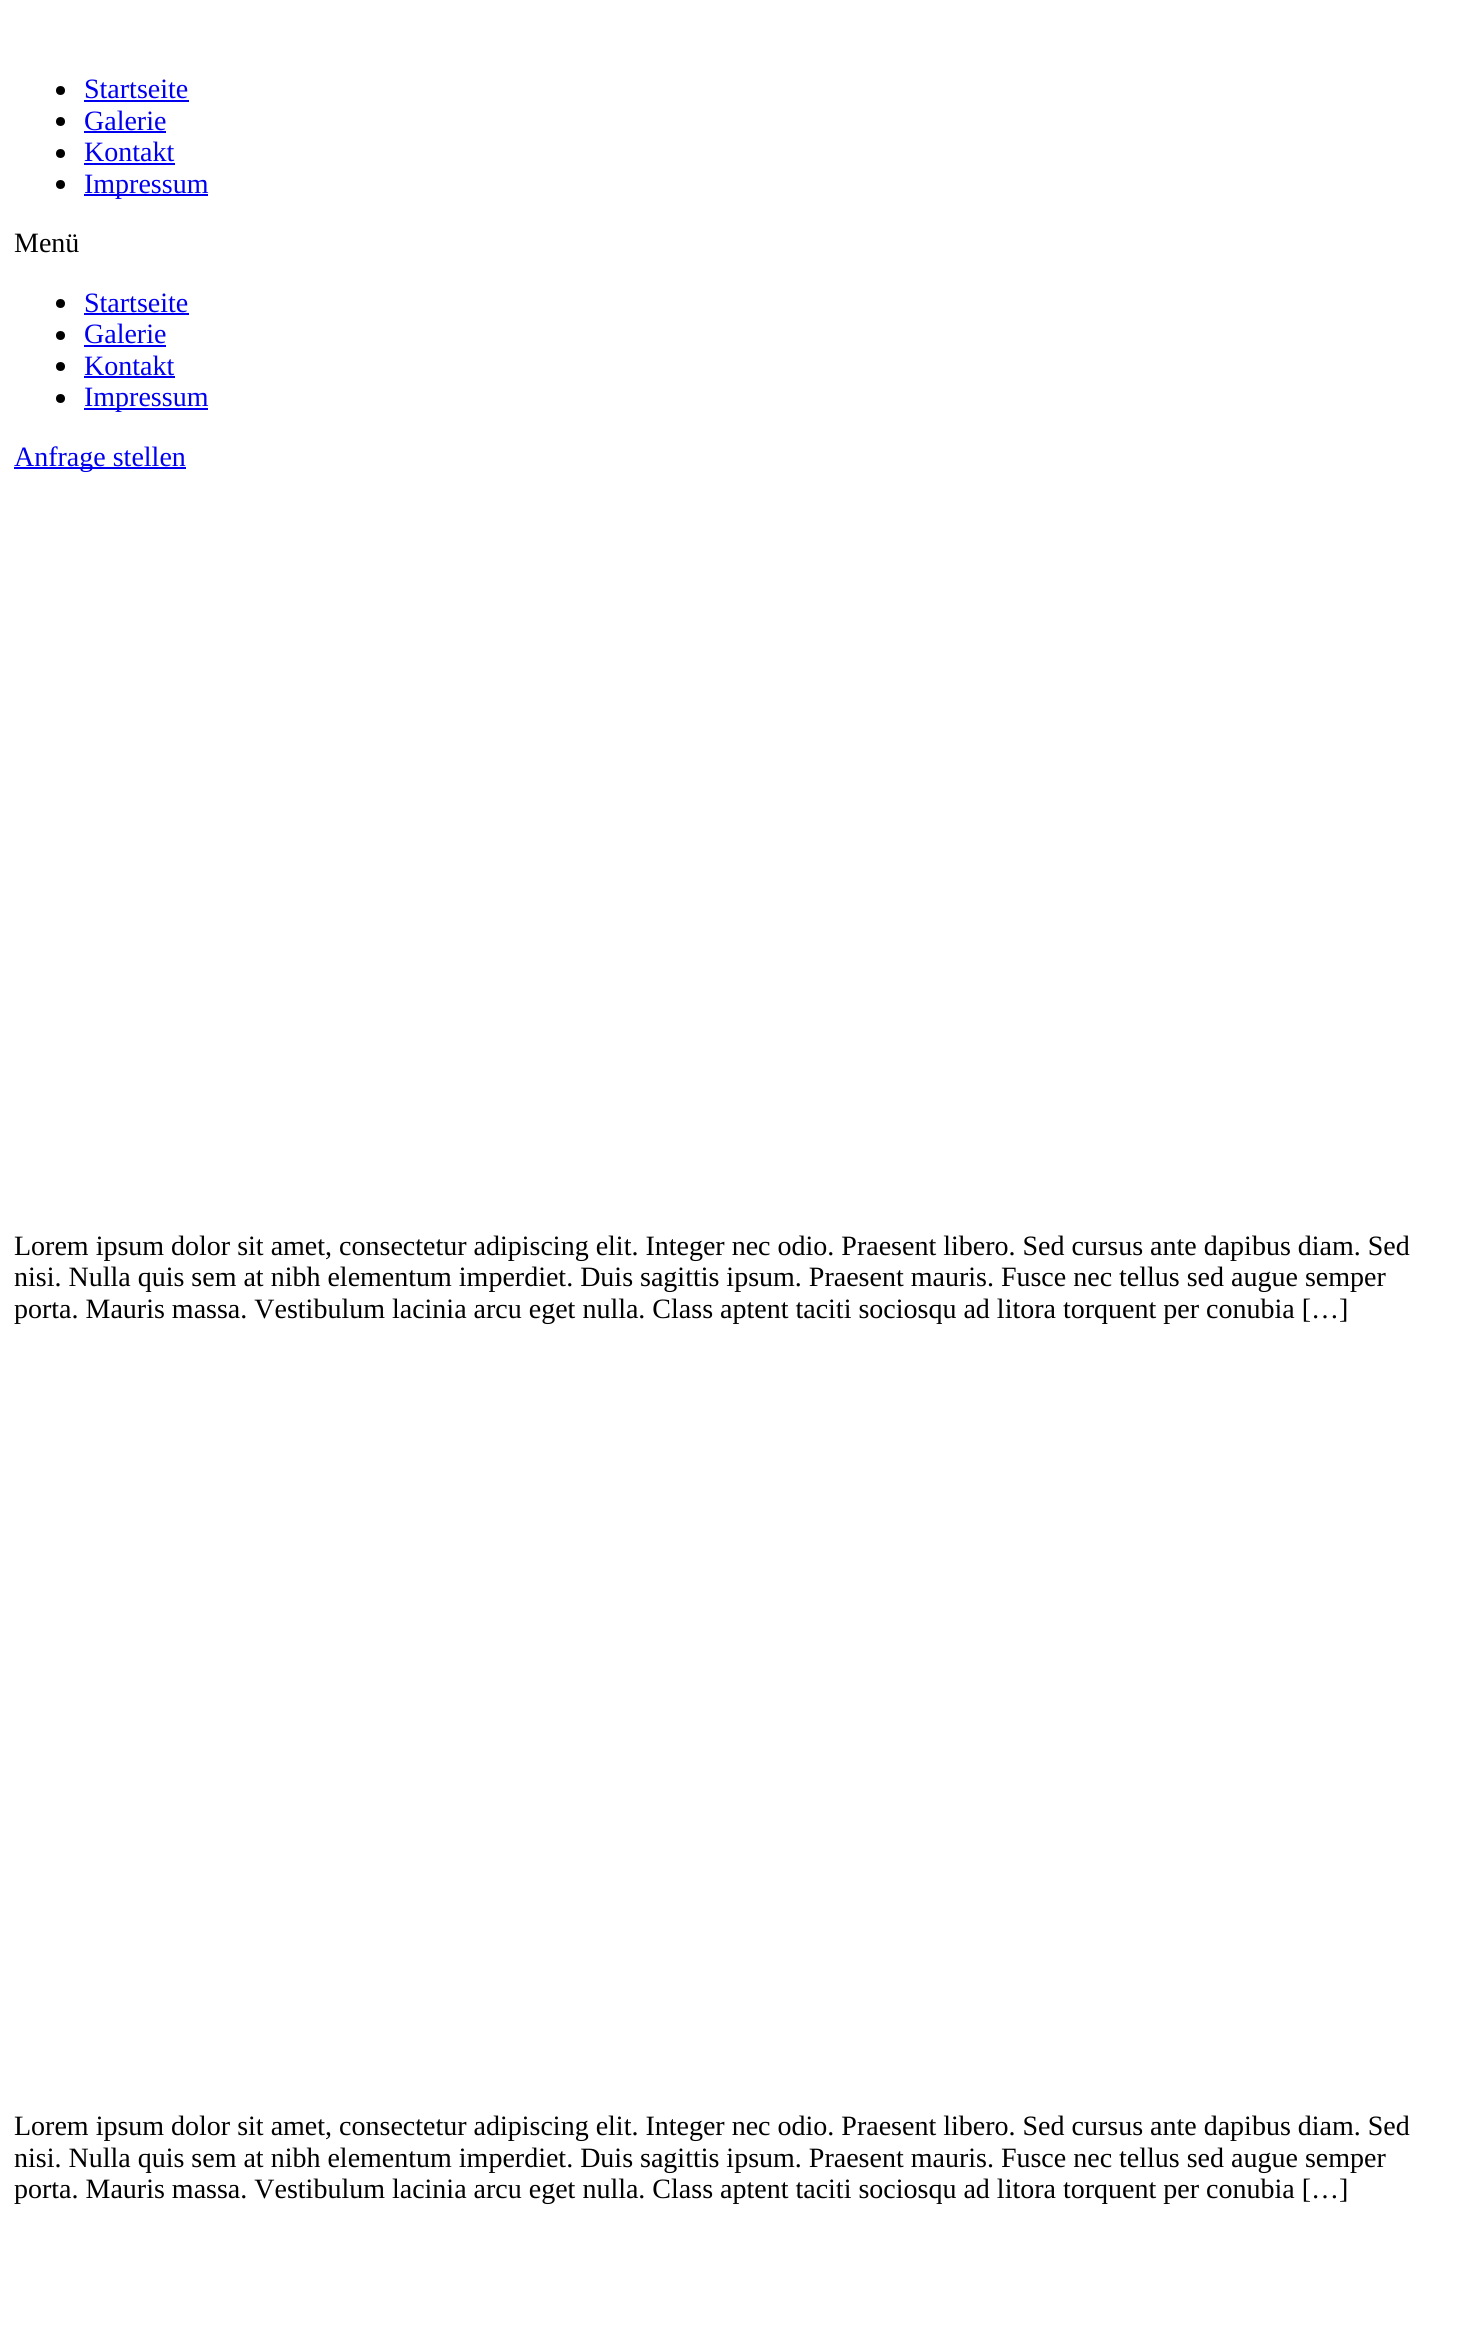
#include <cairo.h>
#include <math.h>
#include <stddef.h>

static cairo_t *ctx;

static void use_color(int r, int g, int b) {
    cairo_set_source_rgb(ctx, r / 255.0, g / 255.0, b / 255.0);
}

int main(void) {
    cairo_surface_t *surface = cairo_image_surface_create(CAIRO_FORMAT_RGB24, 1462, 2336);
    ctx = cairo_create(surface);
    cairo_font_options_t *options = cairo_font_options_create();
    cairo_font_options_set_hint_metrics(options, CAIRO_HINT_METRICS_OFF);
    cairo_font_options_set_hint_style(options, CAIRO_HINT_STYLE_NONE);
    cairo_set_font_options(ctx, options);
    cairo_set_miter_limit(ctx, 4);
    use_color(255, 255, 255);
    cairo_paint(ctx);
    use_color(0, 0, 0);
    cairo_arc(ctx, 60.5, 90.5, 4.5, 0, 2 * M_PI);
    cairo_fill(ctx);
    cairo_select_font_face(ctx, "Liberation Serif", CAIRO_FONT_SLANT_NORMAL, CAIRO_FONT_WEIGHT_NORMAL);
    cairo_set_font_size(ctx, 28);
    use_color(0, 0, 238);
    cairo_move_to(ctx, 84, 98);
    cairo_show_text(ctx, "Startseite");
    cairo_rectangle(ctx, 84, 100, 105, 2);
    cairo_fill(ctx);
    use_color(0, 0, 0);
    cairo_arc(ctx, 60.5, 121.5, 4.5, 0, 2 * M_PI);
    cairo_fill(ctx);
    use_color(0, 0, 238);
    cairo_move_to(ctx, 84, 130);
    cairo_show_text(ctx, "Galerie");
    cairo_rectangle(ctx, 84, 131, 82, 2);
    cairo_fill(ctx);
    use_color(0, 0, 0);
    cairo_arc(ctx, 60.5, 153.5, 4.5, 0, 2 * M_PI);
    cairo_fill(ctx);
    use_color(0, 0, 238);
    cairo_move_to(ctx, 84, 161);
    cairo_show_text(ctx, "Kontakt");
    cairo_rectangle(ctx, 84, 163, 91, 2);
    cairo_fill(ctx);
    use_color(0, 0, 0);
    cairo_arc(ctx, 60.5, 184.5, 4.5, 0, 2 * M_PI);
    cairo_fill(ctx);
    use_color(0, 0, 238);
    cairo_rectangle(ctx, 84, 194, 124, 2);
    cairo_fill(ctx);
    cairo_move_to(ctx, 84, 193);
    cairo_show_text(ctx, "Impressum");
    use_color(0, 0, 0);
    cairo_move_to(ctx, 14, 252);
    cairo_show_text(ctx, "Menü");
    cairo_new_path(ctx);
    cairo_arc(ctx, 60.5, 303.5, 4.5, 0, 2 * M_PI);
    cairo_fill(ctx);
    use_color(0, 0, 238);
    cairo_move_to(ctx, 84, 312);
    cairo_show_text(ctx, "Startseite");
    cairo_rectangle(ctx, 84, 313, 105, 2);
    cairo_fill(ctx);
    use_color(0, 0, 0);
    cairo_arc(ctx, 60.5, 335.5, 4.5, 0, 2 * M_PI);
    cairo_fill(ctx);
    use_color(0, 0, 238);
    cairo_move_to(ctx, 84, 343);
    cairo_show_text(ctx, "Galerie");
    cairo_rectangle(ctx, 84, 345, 82, 2);
    cairo_fill(ctx);
    use_color(0, 0, 0);
    cairo_arc(ctx, 60.5, 366.5, 4.5, 0, 2 * M_PI);
    cairo_fill(ctx);
    use_color(0, 0, 238);
    cairo_move_to(ctx, 84, 375);
    cairo_show_text(ctx, "Kontakt");
    cairo_rectangle(ctx, 84, 376, 91, 2);
    cairo_fill(ctx);
    use_color(0, 0, 0);
    cairo_arc(ctx, 60.5, 398.5, 4.5, 0, 2 * M_PI);
    cairo_fill(ctx);
    use_color(0, 0, 238);
    cairo_rectangle(ctx, 84, 408, 124, 2);
    cairo_fill(ctx);
    cairo_move_to(ctx, 84, 406);
    cairo_show_text(ctx, "Impressum");
    cairo_rectangle(ctx, 14, 467, 172, 2);
    cairo_fill(ctx);
    cairo_move_to(ctx, 14, 466);
    cairo_show_text(ctx, "Anfrage stellen");
    use_color(0, 0, 0);
    cairo_move_to(ctx, 14, 1255);
    cairo_show_text(ctx, "Lorem ipsum dolor sit amet, consectetur adipiscing elit. Integer nec odio. Praesent libero. Sed cursus ante dapibus diam. Sed");
    cairo_move_to(ctx, 14, 1286);
    cairo_show_text(ctx, "nisi. Nulla quis sem at nibh elementum imperdiet. Duis sagittis ipsum. Praesent mauris. Fusce nec tellus sed augue semper");
    cairo_move_to(ctx, 14, 1318);
    cairo_show_text(ctx, "porta. Mauris massa. Vestibulum lacinia arcu eget nulla. Class aptent taciti sociosqu ad litora torquent per conubia […]");
    cairo_move_to(ctx, 14, 2135);
    cairo_show_text(ctx, "Lorem ipsum dolor sit amet, consectetur adipiscing elit. Integer nec odio. Praesent libero. Sed cursus ante dapibus diam. Sed");
    cairo_move_to(ctx, 14, 2167);
    cairo_show_text(ctx, "nisi. Nulla quis sem at nibh elementum imperdiet. Duis sagittis ipsum. Praesent mauris. Fusce nec tellus sed augue semper");
    cairo_move_to(ctx, 14, 2198);
    cairo_show_text(ctx, "porta. Mauris massa. Vestibulum lacinia arcu eget nulla. Class aptent taciti sociosqu ad litora torquent per conubia […]");
    cairo_surface_write_to_png(surface, "result.png");
    cairo_font_options_destroy(options);
    cairo_destroy(ctx);
    cairo_surface_destroy(surface);
    return 0;
}
